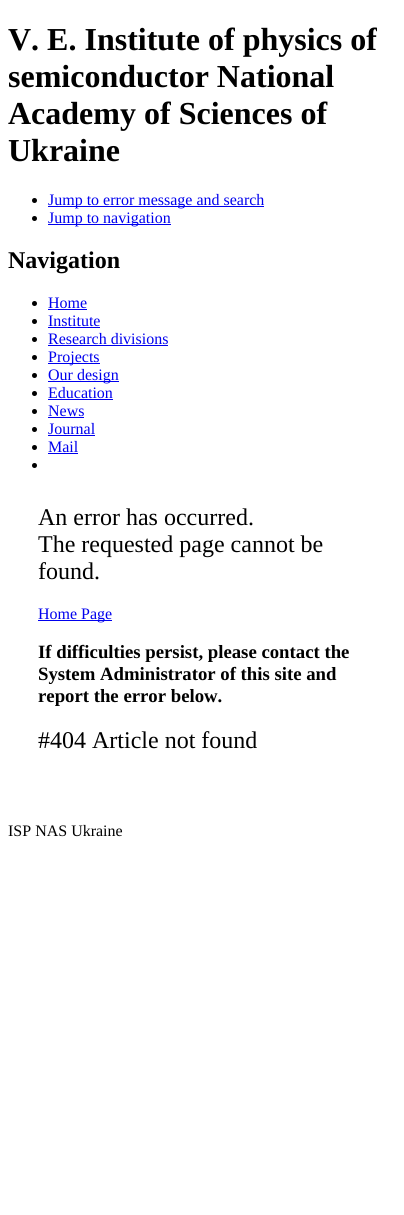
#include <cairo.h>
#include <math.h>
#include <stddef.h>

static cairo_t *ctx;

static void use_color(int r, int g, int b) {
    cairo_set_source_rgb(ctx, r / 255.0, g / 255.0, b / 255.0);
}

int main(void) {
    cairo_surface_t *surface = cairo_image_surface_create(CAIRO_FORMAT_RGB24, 404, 1215);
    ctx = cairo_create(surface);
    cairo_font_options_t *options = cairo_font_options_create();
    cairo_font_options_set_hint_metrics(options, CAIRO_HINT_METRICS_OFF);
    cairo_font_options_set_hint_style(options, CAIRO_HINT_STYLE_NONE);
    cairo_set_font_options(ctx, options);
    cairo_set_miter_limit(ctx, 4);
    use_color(255, 255, 255);
    cairo_paint(ctx);
    cairo_select_font_face(ctx, "Liberation Serif", CAIRO_FONT_SLANT_NORMAL, CAIRO_FONT_WEIGHT_BOLD);
    cairo_set_font_size(ctx, 32);
    use_color(0, 0, 0);
    cairo_move_to(ctx, 8, 50);
    cairo_show_text(ctx, "V. E. Institute of physics of");
    cairo_move_to(ctx, 8, 87);
    cairo_show_text(ctx, "semiconductor National");
    cairo_move_to(ctx, 8, 124);
    cairo_show_text(ctx, "Academy of Sciences of");
    cairo_move_to(ctx, 8, 161);
    cairo_show_text(ctx, "Ukraine");
    cairo_new_path(ctx);
    cairo_arc(ctx, 34.5, 200.5, 2.5, 0, 2 * M_PI);
    cairo_fill(ctx);
    use_color(0, 0, 238);
    cairo_rectangle(ctx, 48, 206, 216, 1);
    cairo_fill(ctx);
    cairo_select_font_face(ctx, "Liberation Serif", CAIRO_FONT_SLANT_NORMAL, CAIRO_FONT_WEIGHT_NORMAL);
    cairo_set_font_size(ctx, 16);
    cairo_move_to(ctx, 48, 205);
    cairo_show_text(ctx, "Jump to error message and search");
    use_color(0, 0, 0);
    cairo_new_path(ctx);
    cairo_arc(ctx, 34.5, 218.5, 2.5, 0, 2 * M_PI);
    cairo_fill(ctx);
    use_color(0, 0, 238);
    cairo_rectangle(ctx, 48, 224, 123, 1);
    cairo_fill(ctx);
    cairo_move_to(ctx, 48, 223);
    cairo_show_text(ctx, "Jump to navigation");
    cairo_select_font_face(ctx, "Liberation Serif", CAIRO_FONT_SLANT_NORMAL, CAIRO_FONT_WEIGHT_BOLD);
    cairo_set_font_size(ctx, 24);
    use_color(0, 0, 0);
    cairo_move_to(ctx, 8, 268);
    cairo_show_text(ctx, "Navigation");
    cairo_new_path(ctx);
    cairo_arc(ctx, 34.5, 303.5, 2.5, 0, 2 * M_PI);
    cairo_fill(ctx);
    cairo_select_font_face(ctx, "Liberation Serif", CAIRO_FONT_SLANT_NORMAL, CAIRO_FONT_WEIGHT_NORMAL);
    cairo_set_font_size(ctx, 16);
    use_color(0, 0, 238);
    cairo_move_to(ctx, 48, 308);
    cairo_show_text(ctx, "Home");
    cairo_rectangle(ctx, 48, 309, 39, 1);
    cairo_fill(ctx);
    use_color(0, 0, 0);
    cairo_arc(ctx, 34.5, 321.5, 2.5, 0, 2 * M_PI);
    cairo_fill(ctx);
    use_color(0, 0, 238);
    cairo_move_to(ctx, 48, 326);
    cairo_show_text(ctx, "Institute");
    cairo_rectangle(ctx, 48, 327, 52, 1);
    cairo_fill(ctx);
    use_color(0, 0, 0);
    cairo_arc(ctx, 34.5, 339.5, 2.5, 0, 2 * M_PI);
    cairo_fill(ctx);
    use_color(0, 0, 238);
    cairo_move_to(ctx, 48, 344);
    cairo_show_text(ctx, "Research divisions");
    cairo_rectangle(ctx, 48, 345, 120, 1);
    cairo_fill(ctx);
    use_color(0, 0, 0);
    cairo_arc(ctx, 34.5, 357.5, 2.5, 0, 2 * M_PI);
    cairo_fill(ctx);
    use_color(0, 0, 238);
    cairo_rectangle(ctx, 48, 363, 52, 1);
    cairo_fill(ctx);
    cairo_move_to(ctx, 48, 362);
    cairo_show_text(ctx, "Projects");
    use_color(0, 0, 0);
    cairo_new_path(ctx);
    cairo_arc(ctx, 34.5, 375.5, 2.5, 0, 2 * M_PI);
    cairo_fill(ctx);
    use_color(0, 0, 238);
    cairo_rectangle(ctx, 48, 381, 71, 1);
    cairo_fill(ctx);
    cairo_move_to(ctx, 48, 380);
    cairo_show_text(ctx, "Our design");
    use_color(0, 0, 0);
    cairo_new_path(ctx);
    cairo_arc(ctx, 34.5, 393.5, 2.5, 0, 2 * M_PI);
    cairo_fill(ctx);
    use_color(0, 0, 238);
    cairo_move_to(ctx, 48, 398);
    cairo_show_text(ctx, "Education");
    cairo_rectangle(ctx, 48, 399, 65, 1);
    cairo_fill(ctx);
    use_color(0, 0, 0);
    cairo_arc(ctx, 34.5, 411.5, 2.5, 0, 2 * M_PI);
    cairo_fill(ctx);
    use_color(0, 0, 238);
    cairo_move_to(ctx, 48, 416);
    cairo_show_text(ctx, "News");
    cairo_rectangle(ctx, 48, 417, 36, 1);
    cairo_fill(ctx);
    use_color(0, 0, 0);
    cairo_arc(ctx, 34.5, 429.5, 2.5, 0, 2 * M_PI);
    cairo_fill(ctx);
    use_color(0, 0, 238);
    cairo_move_to(ctx, 48, 434);
    cairo_show_text(ctx, "Journal");
    cairo_rectangle(ctx, 48, 435, 47, 1);
    cairo_fill(ctx);
    use_color(0, 0, 0);
    cairo_arc(ctx, 34.5, 447.5, 2.5, 0, 2 * M_PI);
    cairo_fill(ctx);
    use_color(0, 0, 238);
    cairo_move_to(ctx, 48, 452);
    cairo_show_text(ctx, "Mail");
    cairo_rectangle(ctx, 48, 453, 30, 1);
    cairo_fill(ctx);
    use_color(0, 0, 0);
    cairo_arc(ctx, 34.5, 465.5, 2.5, 0, 2 * M_PI);
    cairo_fill(ctx);
    cairo_set_font_size(ctx, 24);
    cairo_move_to(ctx, 38, 525);
    cairo_show_text(ctx, "An error has occurred.");
    cairo_move_to(ctx, 38, 552);
    cairo_show_text(ctx, "The requested page cannot be");
    cairo_move_to(ctx, 38, 579);
    cairo_show_text(ctx, "found.");
    use_color(0, 0, 238);
    cairo_rectangle(ctx, 38, 620, 74, 1);
    cairo_fill(ctx);
    cairo_set_font_size(ctx, 16);
    cairo_move_to(ctx, 38, 619);
    cairo_show_text(ctx, "Home Page");
    cairo_select_font_face(ctx, "Liberation Serif", CAIRO_FONT_SLANT_NORMAL, CAIRO_FONT_WEIGHT_BOLD);
    cairo_set_font_size(ctx, 18.75);
    use_color(0, 0, 0);
    cairo_move_to(ctx, 38, 658);
    cairo_show_text(ctx, "If difficulties persist, please contact the");
    cairo_move_to(ctx, 38, 680);
    cairo_show_text(ctx, "System Administrator of this site and");
    cairo_move_to(ctx, 38, 702);
    cairo_show_text(ctx, "report the error below.");
    cairo_select_font_face(ctx, "Liberation Serif", CAIRO_FONT_SLANT_NORMAL, CAIRO_FONT_WEIGHT_NORMAL);
    cairo_set_font_size(ctx, 24);
    cairo_move_to(ctx, 38, 748);
    cairo_show_text(ctx, "#404 Article not found");
    cairo_set_font_size(ctx, 16);
    cairo_move_to(ctx, 8, 836);
    cairo_show_text(ctx, "ISP NAS Ukraine");
    cairo_surface_write_to_png(surface, "result.png");
    cairo_font_options_destroy(options);
    cairo_destroy(ctx);
    cairo_surface_destroy(surface);
    return 0;
}
